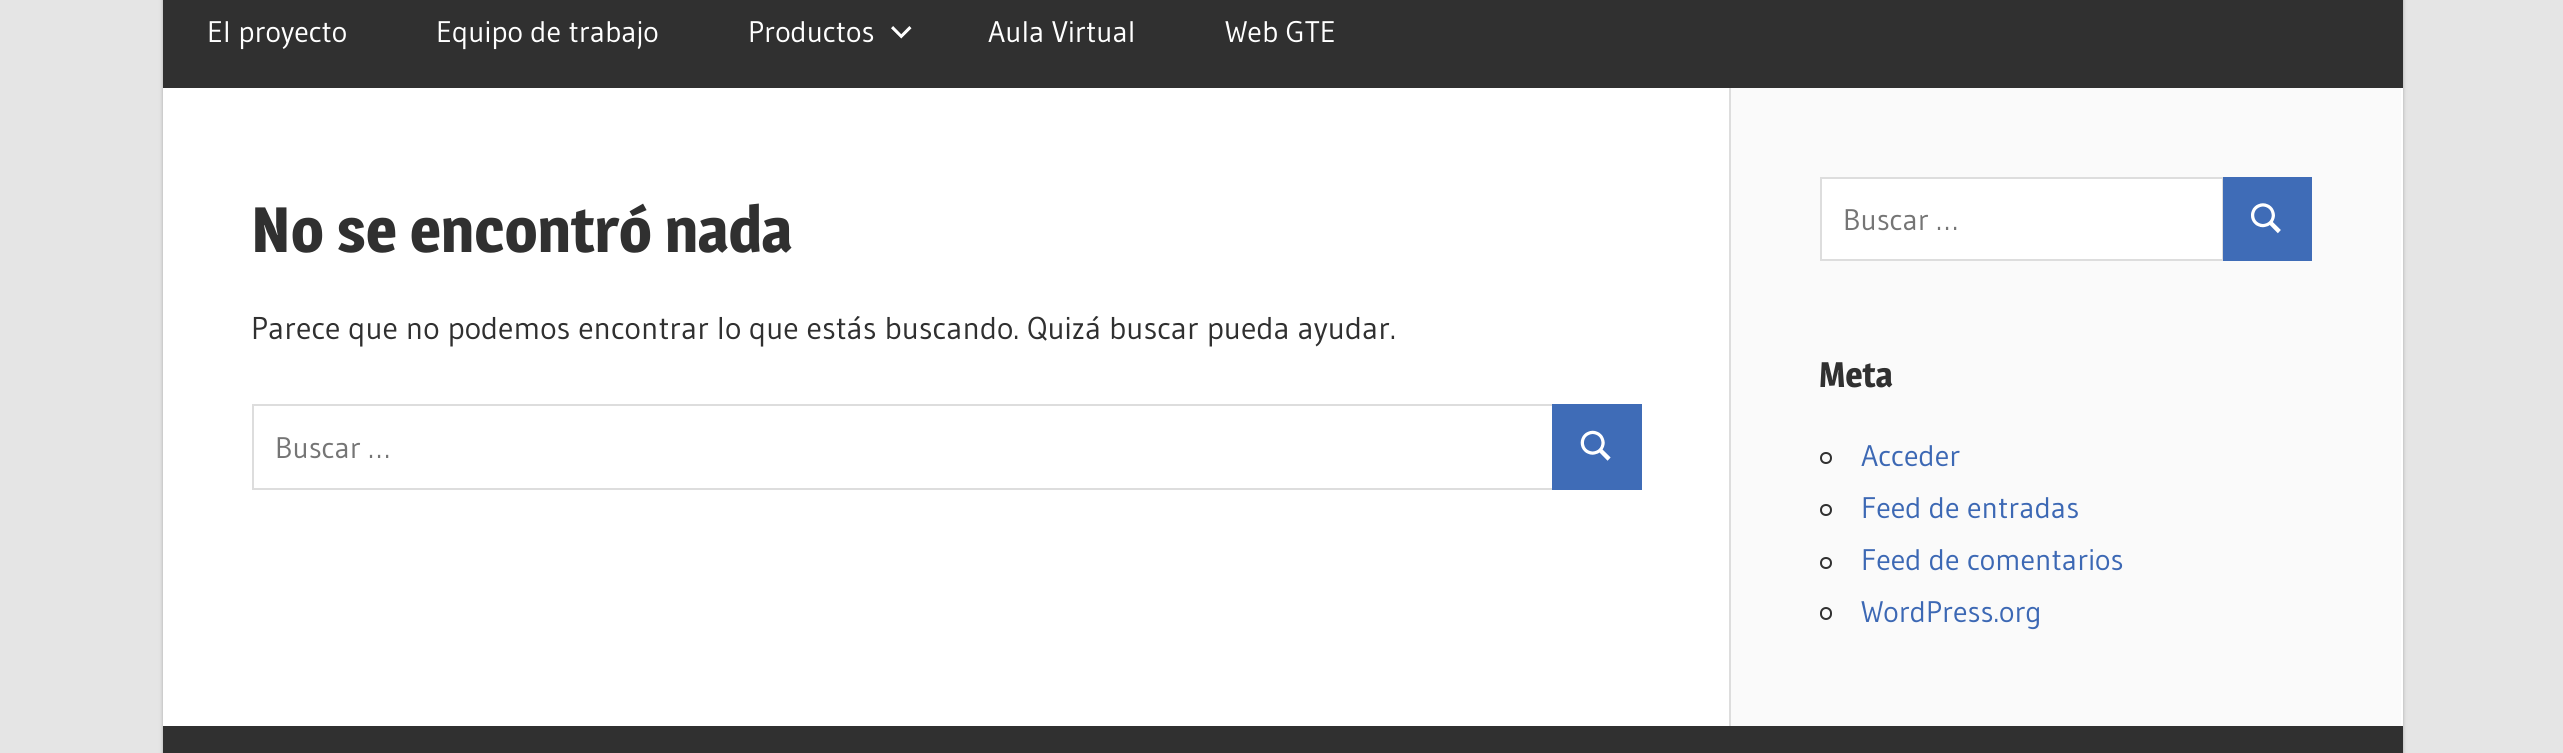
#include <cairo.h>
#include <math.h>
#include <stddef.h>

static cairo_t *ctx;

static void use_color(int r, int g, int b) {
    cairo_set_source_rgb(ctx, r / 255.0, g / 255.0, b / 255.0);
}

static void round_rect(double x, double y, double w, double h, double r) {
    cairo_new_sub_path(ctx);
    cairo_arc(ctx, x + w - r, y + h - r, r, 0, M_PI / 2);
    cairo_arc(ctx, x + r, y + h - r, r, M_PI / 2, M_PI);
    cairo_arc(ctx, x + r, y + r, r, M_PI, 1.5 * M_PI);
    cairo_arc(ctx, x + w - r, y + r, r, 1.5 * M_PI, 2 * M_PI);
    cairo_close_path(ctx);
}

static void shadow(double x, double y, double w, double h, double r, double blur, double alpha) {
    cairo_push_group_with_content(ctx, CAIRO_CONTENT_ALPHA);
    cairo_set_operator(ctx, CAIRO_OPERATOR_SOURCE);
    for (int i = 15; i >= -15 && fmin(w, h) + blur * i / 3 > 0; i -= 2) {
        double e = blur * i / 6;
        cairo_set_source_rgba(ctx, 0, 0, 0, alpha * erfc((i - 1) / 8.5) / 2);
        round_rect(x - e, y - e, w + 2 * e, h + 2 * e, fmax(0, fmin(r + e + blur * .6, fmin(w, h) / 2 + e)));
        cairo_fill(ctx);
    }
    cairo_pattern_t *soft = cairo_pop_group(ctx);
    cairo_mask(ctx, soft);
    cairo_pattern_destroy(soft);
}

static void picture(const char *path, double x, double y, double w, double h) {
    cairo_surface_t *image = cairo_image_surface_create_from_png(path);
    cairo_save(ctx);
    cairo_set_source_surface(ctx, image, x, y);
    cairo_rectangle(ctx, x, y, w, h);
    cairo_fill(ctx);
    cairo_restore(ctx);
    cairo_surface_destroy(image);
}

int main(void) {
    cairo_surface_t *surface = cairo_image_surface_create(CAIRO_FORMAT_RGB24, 2563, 753);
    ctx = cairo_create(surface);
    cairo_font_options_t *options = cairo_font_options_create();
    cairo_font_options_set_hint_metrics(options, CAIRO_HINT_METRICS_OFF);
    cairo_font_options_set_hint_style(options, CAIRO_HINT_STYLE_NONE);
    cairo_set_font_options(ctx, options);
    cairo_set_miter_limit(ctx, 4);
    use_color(229, 229, 229);
    cairo_paint(ctx);
    use_color(170, 170, 170);
    shadow(163, -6, 2240, 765, 0, 2, 1);
    use_color(255, 255, 255);
    cairo_rectangle(ctx, 163, 88, 2240, 638);
    cairo_fill(ctx);
    use_color(48, 48, 48);
    cairo_rectangle(ctx, 163, 0, 2240, 88);
    cairo_fill(ctx);
    cairo_select_font_face(ctx, "Gudea", CAIRO_FONT_SLANT_NORMAL, CAIRO_FONT_WEIGHT_NORMAL);
    cairo_set_font_size(ctx, 29.75);
    use_color(255, 255, 255);
    cairo_move_to(ctx, 207, 42);
    cairo_show_text(ctx, "El proyecto");
    cairo_move_to(ctx, 436, 42);
    cairo_show_text(ctx, "Equipo de trabajo");
    cairo_move_to(ctx, 748, 42);
    cairo_show_text(ctx, "Productos");
    picture("img1.png", 891, 26, 21, 13);
    cairo_move_to(ctx, 988, 42);
    cairo_show_text(ctx, "Aula Virtual");
    cairo_move_to(ctx, 1225, 42);
    cairo_show_text(ctx, "Web GTE");
    cairo_select_font_face(ctx, "Magra", CAIRO_FONT_SLANT_NORMAL, CAIRO_FONT_WEIGHT_BOLD);
    cairo_set_font_size(ctx, 63);
    use_color(48, 48, 48);
    cairo_move_to(ctx, 251, 252);
    cairo_show_text(ctx, "No se encontró nada");
    cairo_select_font_face(ctx, "Gudea", CAIRO_FONT_SLANT_NORMAL, CAIRO_FONT_WEIGHT_NORMAL);
    cairo_set_font_size(ctx, 31.5);
    cairo_move_to(ctx, 251, 339);
    cairo_show_text(ctx, "Parece que no podemos encontrar lo que estás buscando. Quizá buscar pueda ayudar.");
    cairo_rectangle(ctx, 253, 405, 1300, 84);
    use_color(221, 221, 221);
    cairo_stroke(ctx);
    cairo_set_font_size(ctx, 29.75);
    use_color(117, 117, 117);
    cairo_move_to(ctx, 275, 458);
    cairo_show_text(ctx, "Buscar …");
    use_color(63, 108, 183);
    cairo_rectangle(ctx, 1552, 404, 90, 86);
    cairo_fill(ctx);
    picture("img2.png", 1580, 430, 31, 31);
    use_color(250, 250, 250);
    cairo_rectangle(ctx, 1731, 88, 670, 638);
    cairo_fill(ctx);
    use_color(221, 221, 221);
    cairo_rectangle(ctx, 1729, 88, 2, 638);
    cairo_fill(ctx);
    use_color(255, 255, 255);
    cairo_rectangle(ctx, 1821, 178, 402, 82);
    cairo_fill_preserve(ctx);
    use_color(221, 221, 221);
    cairo_stroke(ctx);
    use_color(117, 117, 117);
    cairo_move_to(ctx, 1843, 230);
    cairo_show_text(ctx, "Buscar …");
    use_color(63, 108, 183);
    cairo_rectangle(ctx, 2223, 177, 89, 84);
    cairo_fill(ctx);
    picture("img3.png", 2251, 203, 30, 31);
    cairo_select_font_face(ctx, "Magra", CAIRO_FONT_SLANT_NORMAL, CAIRO_FONT_WEIGHT_BOLD);
    cairo_set_font_size(ctx, 35);
    use_color(48, 48, 48);
    cairo_move_to(ctx, 1819, 387);
    cairo_show_text(ctx, "Meta");
    cairo_new_path(ctx);
    cairo_arc(ctx, 1826, 458, 5, 0, 2 * M_PI);
    cairo_stroke(ctx);
    cairo_select_font_face(ctx, "Gudea", CAIRO_FONT_SLANT_NORMAL, CAIRO_FONT_WEIGHT_NORMAL);
    cairo_set_font_size(ctx, 29.75);
    use_color(60, 104, 180);
    cairo_move_to(ctx, 1861, 466);
    cairo_show_text(ctx, "Acceder");
    cairo_new_path(ctx);
    cairo_arc(ctx, 1826, 510, 5, 0, 2 * M_PI);
    use_color(48, 48, 48);
    cairo_stroke(ctx);
    use_color(60, 104, 180);
    cairo_move_to(ctx, 1861, 518);
    cairo_show_text(ctx, "Feed de entradas");
    cairo_new_path(ctx);
    cairo_arc(ctx, 1826, 563, 5, 0, 2 * M_PI);
    use_color(48, 48, 48);
    cairo_stroke(ctx);
    use_color(60, 104, 180);
    cairo_move_to(ctx, 1861, 570);
    cairo_show_text(ctx, "Feed de comentarios");
    round_rect(1821, 608, 10, 11, 5);
    use_color(48, 48, 48);
    cairo_stroke(ctx);
    use_color(60, 104, 180);
    cairo_move_to(ctx, 1861, 622);
    cairo_show_text(ctx, "WordPress.org");
    use_color(48, 48, 48);
    cairo_rectangle(ctx, 163, 726, 2240, 27);
    cairo_fill(ctx);
    cairo_surface_write_to_png(surface, "result.png");
    cairo_font_options_destroy(options);
    cairo_destroy(ctx);
    cairo_surface_destroy(surface);
    return 0;
}
